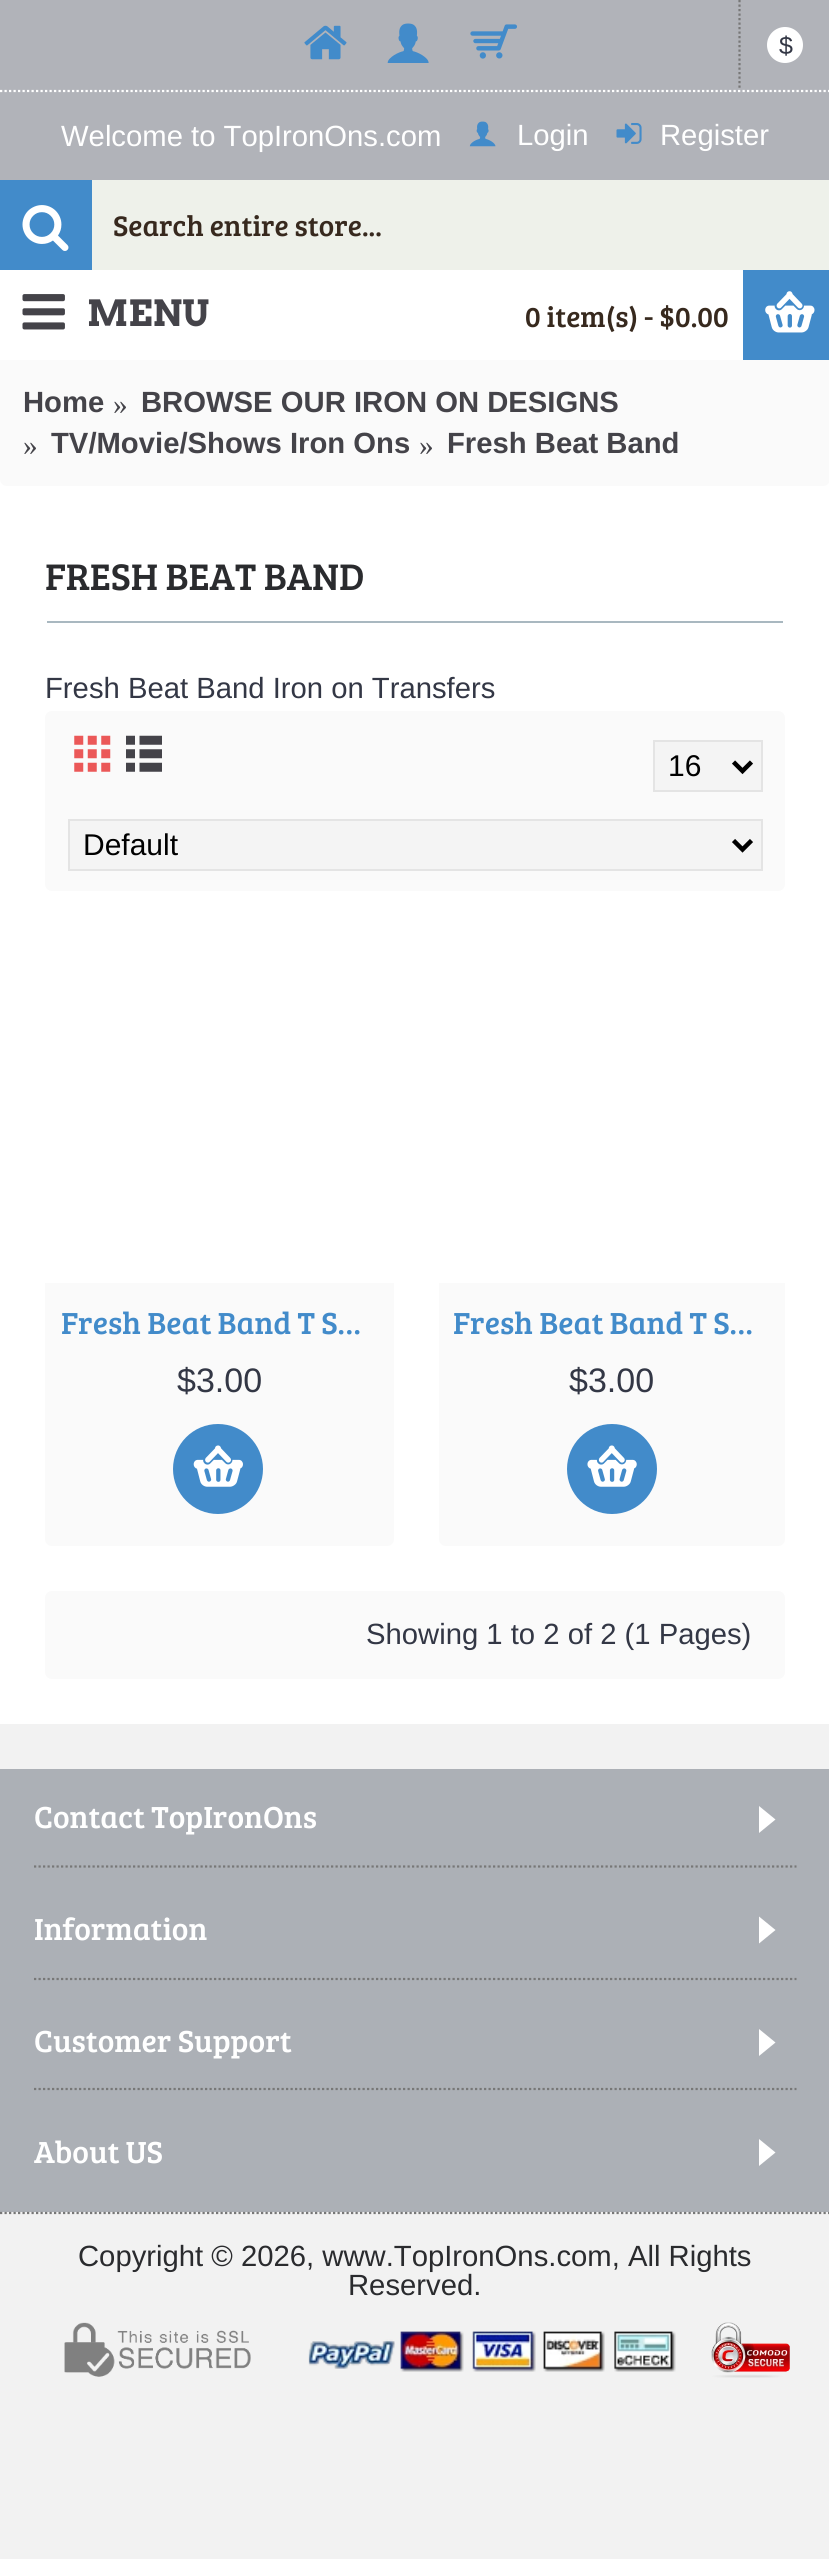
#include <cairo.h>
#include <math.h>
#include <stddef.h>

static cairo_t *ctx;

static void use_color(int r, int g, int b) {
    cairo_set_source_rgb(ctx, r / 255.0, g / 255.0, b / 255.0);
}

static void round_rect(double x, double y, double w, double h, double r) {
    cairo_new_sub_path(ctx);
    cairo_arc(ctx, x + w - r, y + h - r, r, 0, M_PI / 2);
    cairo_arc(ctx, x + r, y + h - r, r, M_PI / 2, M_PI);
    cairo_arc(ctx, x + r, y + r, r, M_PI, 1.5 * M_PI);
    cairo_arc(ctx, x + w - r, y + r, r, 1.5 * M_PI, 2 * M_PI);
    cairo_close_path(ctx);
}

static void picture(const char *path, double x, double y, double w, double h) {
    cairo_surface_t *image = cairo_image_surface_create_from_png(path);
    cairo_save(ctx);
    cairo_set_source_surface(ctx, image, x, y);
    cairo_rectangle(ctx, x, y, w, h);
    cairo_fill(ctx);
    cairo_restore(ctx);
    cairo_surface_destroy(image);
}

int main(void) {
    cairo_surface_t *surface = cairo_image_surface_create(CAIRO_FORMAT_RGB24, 829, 2559);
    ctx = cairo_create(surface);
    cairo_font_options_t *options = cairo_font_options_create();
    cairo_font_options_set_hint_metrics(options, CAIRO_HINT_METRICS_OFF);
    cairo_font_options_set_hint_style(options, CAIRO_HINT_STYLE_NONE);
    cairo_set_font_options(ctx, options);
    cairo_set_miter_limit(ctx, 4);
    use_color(242, 242, 242);
    cairo_paint(ctx);
    use_color(177, 179, 185);
    cairo_rectangle(ctx, 0, 0, 829, 180);
    cairo_fill(ctx);
    picture("img1.png", 304, 25, 43, 35);
    picture("img2.png", 387, 23, 42, 40);
    picture("img3.png", 470, 24, 47, 35);
    cairo_new_path(ctx);
    cairo_move_to(ctx, 739.5, 0);
    cairo_line_to(ctx, 739.5, 90);
    use_color(119, 119, 119);
    cairo_set_line_width(ctx, 2.2);
    cairo_set_dash(ctx, (double[]){2.25, 2.25}, 2, 0);
    cairo_stroke(ctx);
    use_color(255, 255, 255);
    cairo_arc(ctx, 785, 45, 18, 0, 2 * M_PI);
    cairo_fill(ctx);
    cairo_select_font_face(ctx, "Liberation Sans", CAIRO_FONT_SLANT_NORMAL, CAIRO_FONT_WEIGHT_NORMAL);
    cairo_set_font_size(ctx, 25);
    use_color(51, 55, 69);
    cairo_move_to(ctx, 779, 54);
    cairo_show_text(ctx, "$");
    cairo_new_path(ctx);
    cairo_move_to(ctx, 0, 91);
    cairo_line_to(ctx, 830, 91);
    use_color(255, 255, 255);
    cairo_stroke(ctx);
    cairo_set_font_size(ctx, 29.25);
    cairo_move_to(ctx, 61, 146);
    cairo_show_text(ctx, "Welcome to TopIronOns.com");
    picture("img4.png", 469, 121, 27, 26);
    cairo_move_to(ctx, 517, 145);
    cairo_show_text(ctx, "Login");
    picture("img5.png", 616, 123, 26, 21);
    cairo_move_to(ctx, 660, 145);
    cairo_show_text(ctx, "Register");
    use_color(66, 139, 202);
    cairo_rectangle(ctx, 0, 180, 92, 90);
    cairo_fill(ctx);
    picture("img6.png", 22, 205, 47, 46);
    use_color(238, 241, 234);
    cairo_rectangle(ctx, 92, 180, 737, 90);
    cairo_fill(ctx);
    cairo_select_font_face(ctx, "Bree Serif", CAIRO_FONT_SLANT_NORMAL, CAIRO_FONT_WEIGHT_NORMAL);
    use_color(55, 41, 30);
    cairo_move_to(ctx, 113, 236);
    cairo_show_text(ctx, "Search entire store...");
    use_color(255, 255, 255);
    cairo_rectangle(ctx, 0, 270, 743, 90);
    cairo_fill(ctx);
    use_color(55, 41, 30);
    cairo_move_to(ctx, 525, 327);
    cairo_show_text(ctx, "0 item(s) - $0.00");
    use_color(66, 139, 202);
    cairo_rectangle(ctx, 743, 270, 86, 90);
    cairo_fill(ctx);
    picture("img7.png", 765, 291, 50, 42);
    picture("img8.png", 22, 294, 43, 36);
    cairo_select_font_face(ctx, "Arvo", CAIRO_FONT_SLANT_NORMAL, CAIRO_FONT_WEIGHT_BOLD);
    cairo_set_font_size(ctx, 36);
    use_color(68, 67, 73);
    cairo_move_to(ctx, 87, 326);
    cairo_show_text(ctx, "MENU");
    use_color(255, 255, 255);
    cairo_rectangle(ctx, 0, 479, 829, 1245);
    cairo_fill(ctx);
    use_color(250, 250, 250);
    cairo_new_path(ctx);
    cairo_move_to(ctx, 0, 360);
    cairo_line_to(ctx, 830, 360);
    cairo_line_to(ctx, 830, 479);
    cairo_curve_to(ctx, 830, 483, 827, 486, 823, 486);
    cairo_line_to(ctx, 7, 486);
    cairo_curve_to(ctx, 3, 486, 0, 483, 0, 479);
    cairo_close_path(ctx);
    cairo_fill(ctx);
    cairo_select_font_face(ctx, "Liberation Sans", CAIRO_FONT_SLANT_NORMAL, CAIRO_FONT_WEIGHT_BOLD);
    cairo_set_font_size(ctx, 29.25);
    use_color(68, 67, 73);
    cairo_move_to(ctx, 23, 412);
    cairo_show_text(ctx, "Home");
    cairo_select_font_face(ctx, "Liberation Serif", CAIRO_FONT_SLANT_NORMAL, CAIRO_FONT_WEIGHT_NORMAL);
    cairo_move_to(ctx, 113, 414);
    cairo_show_text(ctx, "»");
    cairo_select_font_face(ctx, "Liberation Sans", CAIRO_FONT_SLANT_NORMAL, CAIRO_FONT_WEIGHT_BOLD);
    cairo_move_to(ctx, 141, 412);
    cairo_show_text(ctx, "BROWSE OUR IRON ON DESIGNS");
    cairo_select_font_face(ctx, "Liberation Serif", CAIRO_FONT_SLANT_NORMAL, CAIRO_FONT_WEIGHT_NORMAL);
    cairo_move_to(ctx, 23, 455);
    cairo_show_text(ctx, "»");
    cairo_select_font_face(ctx, "Liberation Sans", CAIRO_FONT_SLANT_NORMAL, CAIRO_FONT_WEIGHT_BOLD);
    cairo_move_to(ctx, 51, 453);
    cairo_show_text(ctx, "TV/Movie/Shows Iron Ons");
    cairo_select_font_face(ctx, "Liberation Serif", CAIRO_FONT_SLANT_NORMAL, CAIRO_FONT_WEIGHT_NORMAL);
    cairo_move_to(ctx, 419, 455);
    cairo_show_text(ctx, "»");
    cairo_select_font_face(ctx, "Liberation Sans", CAIRO_FONT_SLANT_NORMAL, CAIRO_FONT_WEIGHT_BOLD);
    cairo_move_to(ctx, 447, 453);
    cairo_show_text(ctx, "Fresh Beat Band");
    use_color(169, 184, 192);
    cairo_rectangle(ctx, 47, 621, 736, 2);
    cairo_fill(ctx);
    cairo_select_font_face(ctx, "Bree Serif", CAIRO_FONT_SLANT_NORMAL, CAIRO_FONT_WEIGHT_NORMAL);
    cairo_set_font_size(ctx, 38.25);
    use_color(42, 43, 46);
    cairo_move_to(ctx, 45, 590);
    cairo_show_text(ctx, "FRESH BEAT BAND");
    cairo_select_font_face(ctx, "Liberation Sans", CAIRO_FONT_SLANT_NORMAL, CAIRO_FONT_WEIGHT_NORMAL);
    cairo_set_font_size(ctx, 29.25);
    use_color(51, 55, 69);
    cairo_move_to(ctx, 45, 698);
    cairo_show_text(ctx, "Fresh Beat Band Iron on Transfers");
    use_color(250, 250, 250);
    round_rect(45, 711, 740, 180, 7);
    cairo_fill(ctx);
    picture("img9.png", 74, 735, 37, 37);
    picture("img10.png", 126, 735, 36, 37);
    use_color(244, 244, 244);
    cairo_rectangle(ctx, 654, 741, 108, 50);
    cairo_fill_preserve(ctx);
    use_color(228, 228, 228);
    cairo_set_line_width(ctx, 2);
    cairo_set_dash(ctx, NULL, 0, 0);
    cairo_stroke(ctx);
    cairo_new_path(ctx);
    cairo_move_to(ctx, 733.5, 762);
    cairo_line_to(ctx, 742.5, 771);
    cairo_line_to(ctx, 751.5, 762);
    use_color(0, 0, 0);
    cairo_set_line_width(ctx, 4.5);
    cairo_stroke(ctx);
    cairo_set_font_size(ctx, 30);
    cairo_move_to(ctx, 668, 776);
    cairo_show_text(ctx, "16");
    use_color(244, 244, 244);
    cairo_rectangle(ctx, 69, 820, 693, 50);
    cairo_fill_preserve(ctx);
    use_color(228, 228, 228);
    cairo_set_line_width(ctx, 2);
    cairo_stroke(ctx);
    cairo_new_path(ctx);
    cairo_move_to(ctx, 733.5, 840.5);
    cairo_line_to(ctx, 742.5, 849.5);
    cairo_line_to(ctx, 751.5, 840.5);
    use_color(0, 0, 0);
    cairo_set_line_width(ctx, 4.5);
    cairo_stroke(ctx);
    cairo_move_to(ctx, 83, 855);
    cairo_show_text(ctx, "Default");
    use_color(250, 250, 250);
    cairo_new_path(ctx);
    cairo_move_to(ctx, 45, 1283);
    cairo_line_to(ctx, 394, 1283);
    cairo_line_to(ctx, 394, 1539);
    cairo_curve_to(ctx, 394, 1543, 391, 1546, 387, 1546);
    cairo_line_to(ctx, 52, 1546);
    cairo_curve_to(ctx, 48, 1546, 45, 1543, 45, 1539);
    cairo_close_path(ctx);
    cairo_fill(ctx);
    cairo_select_font_face(ctx, "Bree Serif", CAIRO_FONT_SLANT_NORMAL, CAIRO_FONT_WEIGHT_NORMAL);
    cairo_set_font_size(ctx, 31.5);
    use_color(66, 139, 202);
    cairo_move_to(ctx, 61, 1334);
    cairo_show_text(ctx, "Fresh Beat Band T S…");
    cairo_select_font_face(ctx, "Liberation Sans", CAIRO_FONT_SLANT_NORMAL, CAIRO_FONT_WEIGHT_NORMAL);
    cairo_set_font_size(ctx, 34);
    use_color(51, 55, 69);
    cairo_move_to(ctx, 177, 1392);
    cairo_show_text(ctx, "$3.00");
    use_color(66, 139, 202);
    cairo_new_path(ctx);
    cairo_arc(ctx, 218, 1469, 45, 0, 2 * M_PI);
    cairo_fill(ctx);
    picture("img11.png", 193, 1445, 50, 42);
    use_color(250, 250, 250);
    cairo_new_path(ctx);
    cairo_move_to(ctx, 439, 1283);
    cairo_line_to(ctx, 785, 1283);
    cairo_line_to(ctx, 785, 1539);
    cairo_curve_to(ctx, 785, 1543, 782, 1546, 778, 1546);
    cairo_line_to(ctx, 446, 1546);
    cairo_curve_to(ctx, 442, 1546, 439, 1543, 439, 1539);
    cairo_close_path(ctx);
    cairo_fill(ctx);
    cairo_select_font_face(ctx, "Bree Serif", CAIRO_FONT_SLANT_NORMAL, CAIRO_FONT_WEIGHT_NORMAL);
    cairo_set_font_size(ctx, 31.5);
    use_color(66, 139, 202);
    cairo_move_to(ctx, 453, 1334);
    cairo_show_text(ctx, "Fresh Beat Band T S…");
    cairo_select_font_face(ctx, "Liberation Sans", CAIRO_FONT_SLANT_NORMAL, CAIRO_FONT_WEIGHT_NORMAL);
    cairo_set_font_size(ctx, 34);
    use_color(51, 55, 69);
    cairo_move_to(ctx, 569, 1392);
    cairo_show_text(ctx, "$3.00");
    use_color(66, 139, 202);
    cairo_new_path(ctx);
    cairo_arc(ctx, 612, 1469, 45, 0, 2 * M_PI);
    cairo_fill(ctx);
    picture("img12.png", 587, 1445, 50, 42);
    use_color(250, 250, 250);
    round_rect(45, 1591, 740, 88, 7);
    cairo_fill(ctx);
    cairo_set_font_size(ctx, 29.25);
    use_color(51, 55, 69);
    cairo_move_to(ctx, 366, 1644);
    cairo_show_text(ctx, "Showing 1 to 2 of 2 (1 Pages)");
    use_color(172, 176, 182);
    cairo_rectangle(ctx, 0, 1769, 829, 443);
    cairo_fill(ctx);
    cairo_new_path(ctx);
    cairo_move_to(ctx, 34, 1866.5);
    cairo_line_to(ctx, 796.5, 1866.5);
    use_color(119, 119, 119);
    cairo_set_line_width(ctx, 2.2);
    cairo_set_dash(ctx, (double[]){2.25, 2.25}, 2, 0);
    cairo_stroke(ctx);
    cairo_select_font_face(ctx, "Bree Serif", CAIRO_FONT_SLANT_NORMAL, CAIRO_FONT_WEIGHT_NORMAL);
    cairo_set_font_size(ctx, 31.5);
    use_color(255, 255, 255);
    cairo_move_to(ctx, 34, 1828);
    cairo_show_text(ctx, "Contact TopIronOns");
    cairo_new_path(ctx);
    cairo_move_to(ctx, 759, 1806);
    cairo_line_to(ctx, 759, 1833);
    cairo_line_to(ctx, 775.5, 1819.5);
    cairo_close_path(ctx);
    cairo_fill(ctx);
    cairo_new_path(ctx);
    cairo_move_to(ctx, 34, 1979);
    cairo_line_to(ctx, 796.5, 1979);
    use_color(119, 119, 119);
    cairo_stroke(ctx);
    use_color(255, 255, 255);
    cairo_move_to(ctx, 34, 1940);
    cairo_show_text(ctx, "Information");
    cairo_new_path(ctx);
    cairo_move_to(ctx, 759, 1916.5);
    cairo_line_to(ctx, 759, 1943.5);
    cairo_line_to(ctx, 775.5, 1930);
    cairo_close_path(ctx);
    cairo_fill(ctx);
    cairo_new_path(ctx);
    cairo_move_to(ctx, 34, 2089);
    cairo_line_to(ctx, 796.5, 2089);
    use_color(119, 119, 119);
    cairo_stroke(ctx);
    use_color(255, 255, 255);
    cairo_move_to(ctx, 34, 2052);
    cairo_show_text(ctx, "Customer Support");
    cairo_new_path(ctx);
    cairo_move_to(ctx, 759, 2029);
    cairo_line_to(ctx, 759, 2056);
    cairo_line_to(ctx, 775.5, 2042.5);
    cairo_close_path(ctx);
    cairo_fill(ctx);
    cairo_move_to(ctx, 34, 2163);
    cairo_show_text(ctx, "About US");
    cairo_new_path(ctx);
    cairo_move_to(ctx, 759, 2139);
    cairo_line_to(ctx, 759, 2166);
    cairo_line_to(ctx, 775.5, 2152.5);
    cairo_close_path(ctx);
    cairo_fill(ctx);
    cairo_new_path(ctx);
    cairo_move_to(ctx, 0, 2213);
    cairo_line_to(ctx, 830, 2213);
    use_color(119, 119, 119);
    cairo_stroke(ctx);
    cairo_select_font_face(ctx, "Liberation Sans", CAIRO_FONT_SLANT_NORMAL, CAIRO_FONT_WEIGHT_NORMAL);
    cairo_set_font_size(ctx, 29.25);
    use_color(42, 43, 46);
    cairo_move_to(ctx, 78, 2266);
    cairo_show_text(ctx, "Copyright © 2026, www.TopIronOns.com, All Rights");
    cairo_move_to(ctx, 348, 2295);
    cairo_show_text(ctx, "Reserved.");
    picture("img13.png", 64, 2322, 187, 55);
    picture("img14.png", 308, 2331, 368, 41);
    picture("img15.png", 711, 2322, 79, 56);
    cairo_surface_write_to_png(surface, "result.png");
    cairo_font_options_destroy(options);
    cairo_destroy(ctx);
    cairo_surface_destroy(surface);
    return 0;
}
